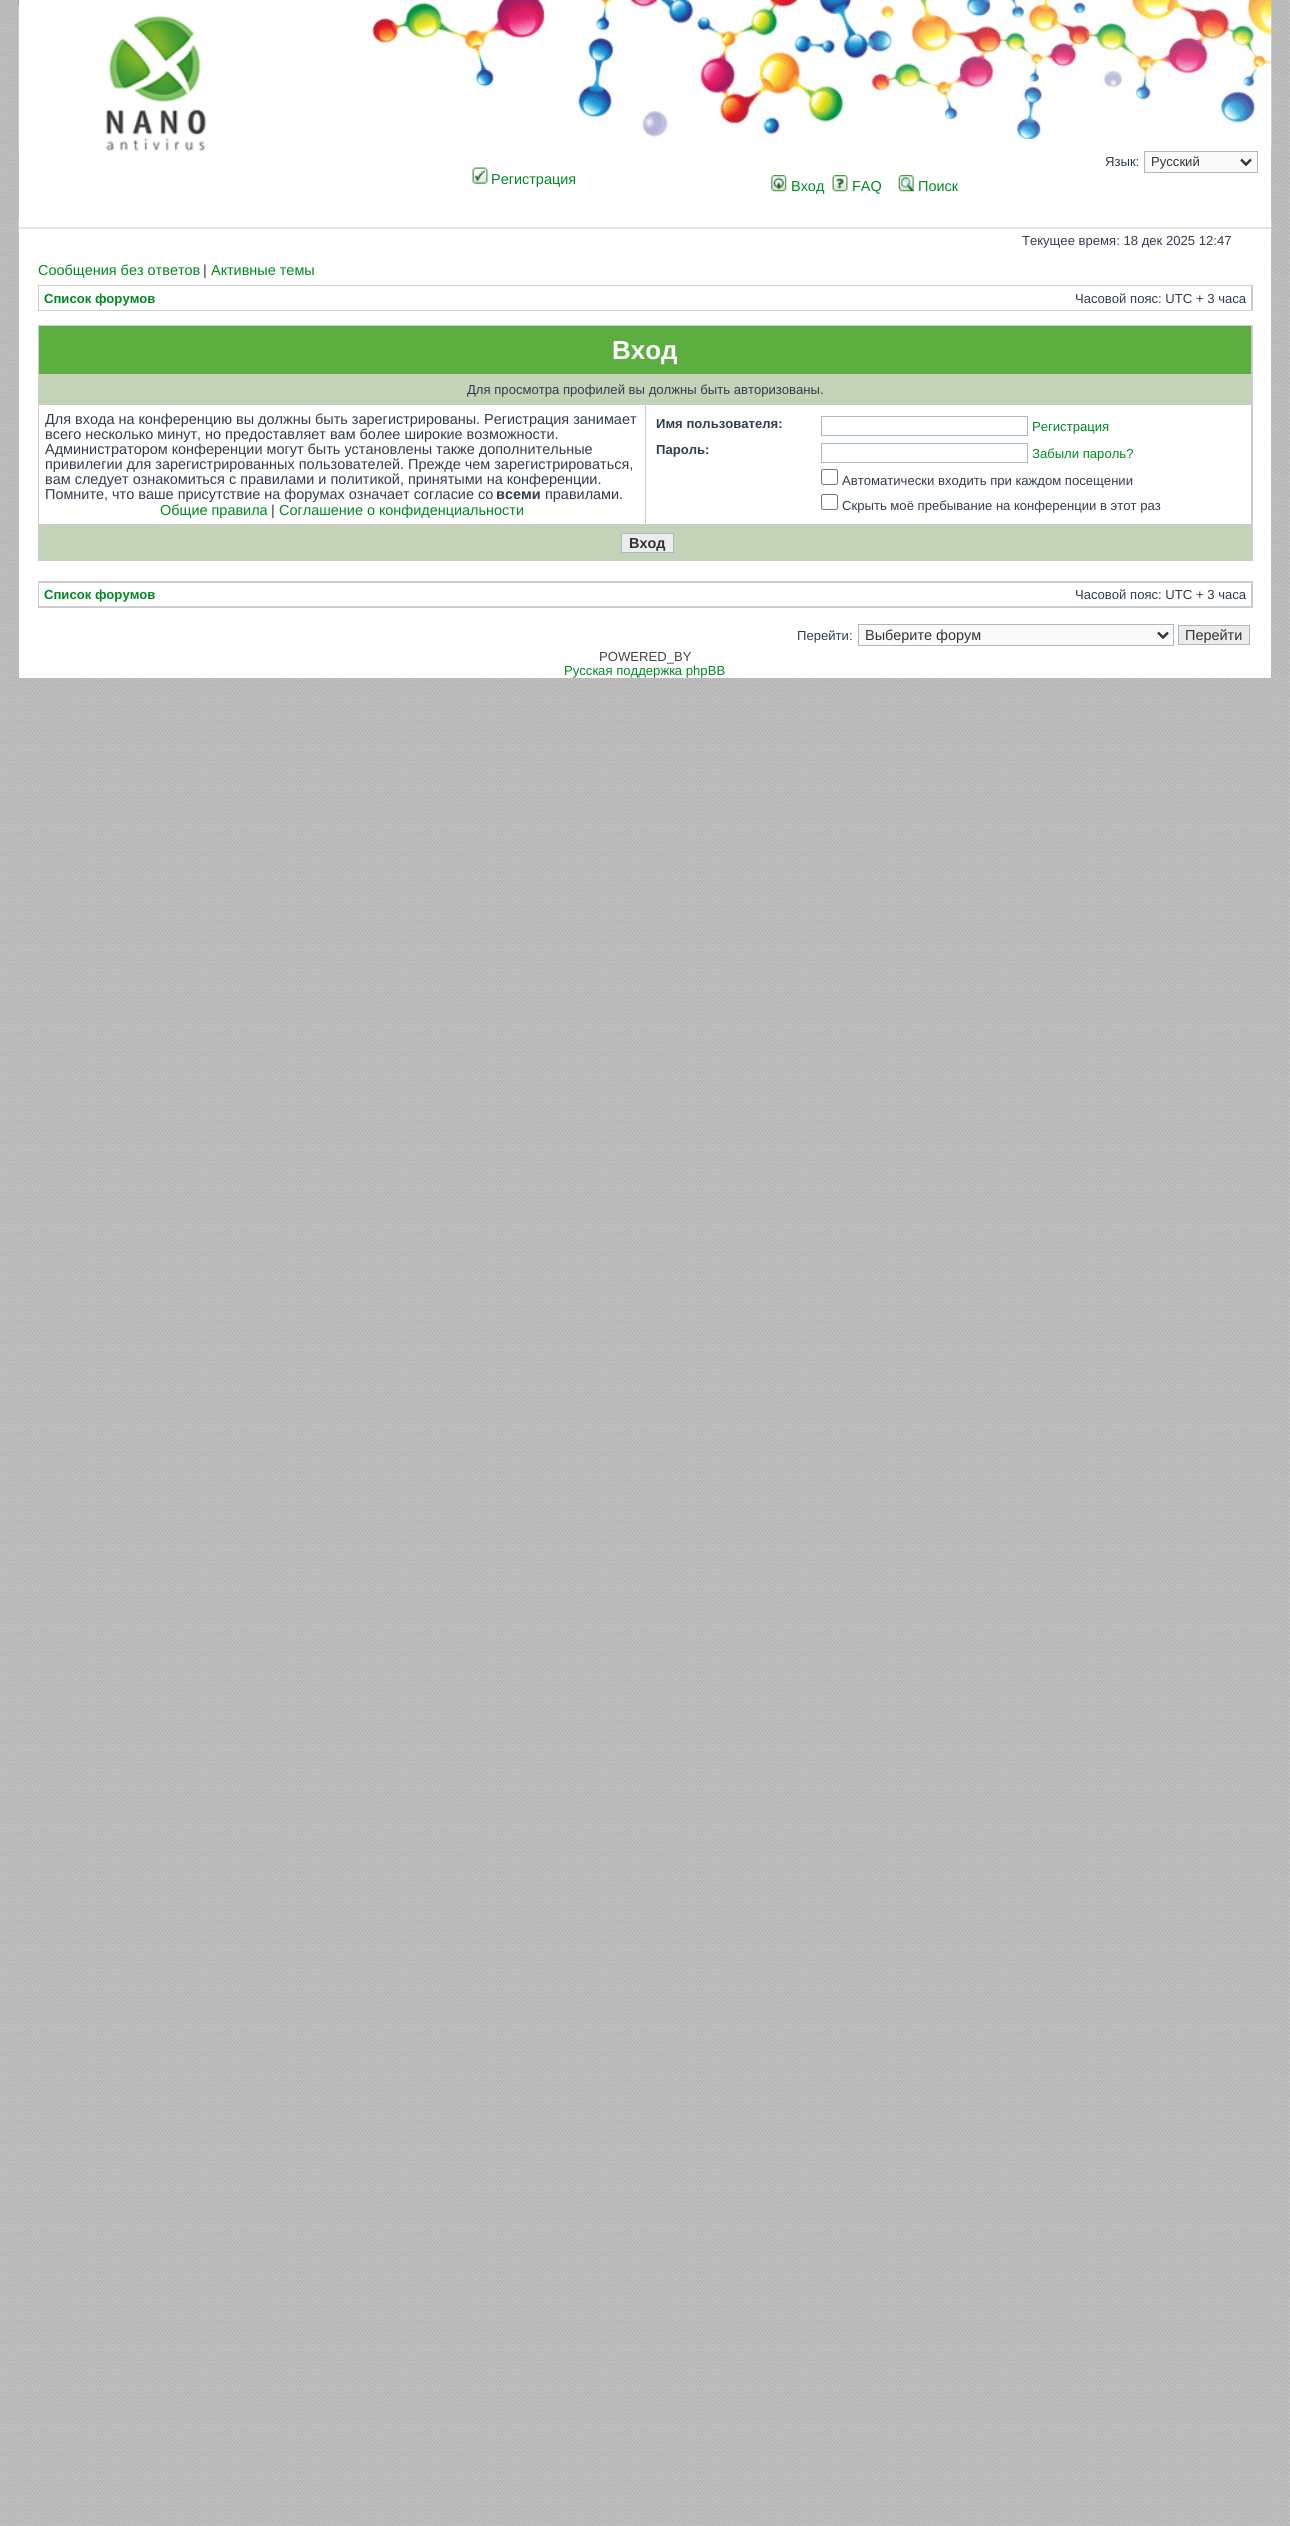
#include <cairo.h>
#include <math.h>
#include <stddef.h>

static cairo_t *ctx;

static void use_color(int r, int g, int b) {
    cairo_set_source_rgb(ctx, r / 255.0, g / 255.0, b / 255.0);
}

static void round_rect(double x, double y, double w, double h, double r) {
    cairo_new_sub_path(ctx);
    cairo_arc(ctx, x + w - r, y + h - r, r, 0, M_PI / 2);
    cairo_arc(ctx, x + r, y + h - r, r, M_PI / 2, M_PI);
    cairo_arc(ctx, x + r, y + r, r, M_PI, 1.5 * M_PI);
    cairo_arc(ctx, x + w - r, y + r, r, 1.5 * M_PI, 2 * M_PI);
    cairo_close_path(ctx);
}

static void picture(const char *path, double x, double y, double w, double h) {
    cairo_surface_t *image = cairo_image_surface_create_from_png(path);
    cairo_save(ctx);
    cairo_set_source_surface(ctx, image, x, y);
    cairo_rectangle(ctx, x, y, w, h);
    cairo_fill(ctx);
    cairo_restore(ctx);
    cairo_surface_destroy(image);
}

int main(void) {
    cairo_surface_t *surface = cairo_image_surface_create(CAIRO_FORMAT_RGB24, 1290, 2526);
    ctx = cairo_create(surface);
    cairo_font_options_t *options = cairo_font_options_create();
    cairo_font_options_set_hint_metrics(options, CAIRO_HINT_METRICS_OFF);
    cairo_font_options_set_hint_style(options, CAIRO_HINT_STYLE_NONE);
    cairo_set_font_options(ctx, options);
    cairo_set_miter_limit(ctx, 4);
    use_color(255, 255, 255);
    cairo_paint(ctx);
    picture("img1.png", 0, 0, 1290, 2526);
    use_color(255, 255, 255);
    cairo_rectangle(ctx, 19, 150, 1252, 528);
    cairo_fill(ctx);
    picture("img2.png", 18, 0, 1254, 150);
    cairo_rectangle(ctx, 19, 0, 320, 140);
    cairo_fill(ctx);
    picture("img3.png", 106, 16, 101, 136);
    cairo_select_font_face(ctx, "Liberation Sans", CAIRO_FONT_SLANT_NORMAL, CAIRO_FONT_WEIGHT_NORMAL);
    cairo_set_font_size(ctx, 13.1);
    use_color(50, 61, 79);
    cairo_move_to(ctx, 1105, 166);
    cairo_show_text(ctx, "Язык:");
    use_color(250, 250, 250);
    cairo_rectangle(ctx, 1144.5, 151.5, 113, 21);
    cairo_fill_preserve(ctx);
    use_color(169, 184, 194);
    cairo_set_line_width(ctx, 1);
    cairo_stroke(ctx);
    cairo_new_path(ctx);
    cairo_move_to(ctx, 1241, 159.5);
    cairo_line_to(ctx, 1246, 164.5);
    cairo_line_to(ctx, 1251, 159.5);
    use_color(51, 51, 51);
    cairo_set_line_width(ctx, 2.5);
    cairo_stroke(ctx);
    cairo_move_to(ctx, 1151, 166);
    cairo_show_text(ctx, "Русский");
    picture("img4.png", 472, 167, 16, 17);
    cairo_set_font_size(ctx, 14.45);
    use_color(0, 137, 35);
    cairo_move_to(ctx, 491, 184);
    cairo_show_text(ctx, "Регистрация");
    picture("img5.png", 771, 175, 16, 17);
    cairo_move_to(ctx, 791, 191);
    cairo_show_text(ctx, "Вход");
    picture("img6.png", 832, 175, 16, 17);
    cairo_move_to(ctx, 852, 191);
    cairo_show_text(ctx, "FAQ");
    picture("img7.png", 898, 175, 16, 17);
    cairo_move_to(ctx, 918, 191);
    cairo_show_text(ctx, "Поиск");
    picture("img8.png", 18, 218, 1254, 14);
    cairo_set_font_size(ctx, 13.1);
    use_color(50, 61, 79);
    cairo_move_to(ctx, 1022, 245);
    cairo_show_text(ctx, "Текущее время: 18 дек 2025 12:47");
    cairo_set_font_size(ctx, 14.45);
    use_color(0, 137, 35);
    cairo_move_to(ctx, 38, 275);
    cairo_show_text(ctx, "Сообщения без ответов");
    use_color(50, 61, 79);
    cairo_move_to(ctx, 203, 275);
    cairo_show_text(ctx, "|");
    use_color(0, 137, 35);
    cairo_move_to(ctx, 211, 275);
    cairo_show_text(ctx, "Активные темы");
    use_color(204, 204, 204);
    cairo_rectangle(ctx, 38, 285, 1215, 26);
    cairo_fill(ctx);
    use_color(255, 255, 255);
    cairo_rectangle(ctx, 39, 286, 1212, 24);
    cairo_fill(ctx);
    cairo_select_font_face(ctx, "Liberation Sans", CAIRO_FONT_SLANT_NORMAL, CAIRO_FONT_WEIGHT_BOLD);
    cairo_set_font_size(ctx, 13.1);
    use_color(0, 137, 35);
    cairo_move_to(ctx, 44, 303);
    cairo_show_text(ctx, "Список форумов");
    cairo_select_font_face(ctx, "Liberation Sans", CAIRO_FONT_SLANT_NORMAL, CAIRO_FONT_WEIGHT_NORMAL);
    use_color(50, 61, 79);
    cairo_move_to(ctx, 1075, 303);
    cairo_show_text(ctx, "Часовой пояс: UTC + 3 часа");
    use_color(204, 204, 204);
    cairo_rectangle(ctx, 38, 325, 1215, 236);
    cairo_fill(ctx);
    use_color(91, 174, 63);
    cairo_rectangle(ctx, 39, 326, 1212, 48);
    cairo_fill(ctx);
    cairo_select_font_face(ctx, "Liberation Sans", CAIRO_FONT_SLANT_NORMAL, CAIRO_FONT_WEIGHT_BOLD);
    cairo_set_font_size(ctx, 26);
    use_color(255, 255, 255);
    cairo_move_to(ctx, 612, 359);
    cairo_show_text(ctx, "Вход");
    use_color(195, 211, 183);
    cairo_rectangle(ctx, 39, 375, 1212, 29);
    cairo_fill(ctx);
    cairo_select_font_face(ctx, "Liberation Sans", CAIRO_FONT_SLANT_NORMAL, CAIRO_FONT_WEIGHT_NORMAL);
    cairo_set_font_size(ctx, 13.1);
    use_color(50, 61, 79);
    cairo_move_to(ctx, 467, 394);
    cairo_show_text(ctx, "Для просмотра профилей вы должны быть авторизованы.");
    use_color(255, 255, 255);
    cairo_rectangle(ctx, 39, 405, 606, 119);
    cairo_fill(ctx);
    cairo_set_font_size(ctx, 14.45);
    use_color(50, 61, 79);
    cairo_move_to(ctx, 45, 424);
    cairo_show_text(ctx, "Для входа на конференцию вы должны быть зарегистрированы. Регистрация занимает");
    cairo_move_to(ctx, 45, 439);
    cairo_show_text(ctx, "всего несколько минут, но предоставляет вам более широкие возможности.");
    cairo_move_to(ctx, 45, 454);
    cairo_show_text(ctx, "Администратором конференции могут быть установлены также дополнительные");
    cairo_move_to(ctx, 45, 469);
    cairo_show_text(ctx, "привилегии для зарегистрированных пользователей. Прежде чем зарегистрироваться,");
    cairo_move_to(ctx, 45, 484);
    cairo_show_text(ctx, "вам следует ознакомиться с правилами и политикой, принятыми на конференции.");
    cairo_move_to(ctx, 45, 499);
    cairo_show_text(ctx, "Помните, что ваше присутствие на форумах означает согласие со");
    cairo_select_font_face(ctx, "Liberation Sans", CAIRO_FONT_SLANT_NORMAL, CAIRO_FONT_WEIGHT_BOLD);
    cairo_move_to(ctx, 496, 499);
    cairo_show_text(ctx, "всеми");
    cairo_select_font_face(ctx, "Liberation Sans", CAIRO_FONT_SLANT_NORMAL, CAIRO_FONT_WEIGHT_NORMAL);
    cairo_move_to(ctx, 545, 499);
    cairo_show_text(ctx, "правилами.");
    use_color(0, 137, 35);
    cairo_move_to(ctx, 160, 515);
    cairo_show_text(ctx, "Общие правила");
    use_color(50, 61, 79);
    cairo_move_to(ctx, 271, 515);
    cairo_show_text(ctx, "|");
    use_color(0, 137, 35);
    cairo_move_to(ctx, 279, 515);
    cairo_show_text(ctx, "Соглашение о конфиденциальности");
    use_color(255, 255, 255);
    cairo_rectangle(ctx, 646, 405, 605, 119);
    cairo_fill(ctx);
    cairo_select_font_face(ctx, "Liberation Sans", CAIRO_FONT_SLANT_NORMAL, CAIRO_FONT_WEIGHT_BOLD);
    cairo_set_font_size(ctx, 13.1);
    use_color(50, 61, 79);
    cairo_move_to(ctx, 656, 428);
    cairo_show_text(ctx, "Имя пользователя:");
    cairo_rectangle(ctx, 821.5, 416.5, 206, 19);
    use_color(169, 184, 194);
    cairo_set_line_width(ctx, 1);
    cairo_stroke(ctx);
    cairo_select_font_face(ctx, "Liberation Sans", CAIRO_FONT_SLANT_NORMAL, CAIRO_FONT_WEIGHT_NORMAL);
    use_color(0, 137, 35);
    cairo_move_to(ctx, 1032, 431);
    cairo_show_text(ctx, "Регистрация");
    cairo_select_font_face(ctx, "Liberation Sans", CAIRO_FONT_SLANT_NORMAL, CAIRO_FONT_WEIGHT_BOLD);
    use_color(50, 61, 79);
    cairo_move_to(ctx, 656, 454);
    cairo_show_text(ctx, "Пароль:");
    cairo_rectangle(ctx, 821.5, 443.5, 206, 19);
    use_color(169, 184, 194);
    cairo_stroke(ctx);
    cairo_select_font_face(ctx, "Liberation Sans", CAIRO_FONT_SLANT_NORMAL, CAIRO_FONT_WEIGHT_NORMAL);
    use_color(0, 137, 35);
    cairo_move_to(ctx, 1032, 458);
    cairo_show_text(ctx, "Забыли пароль?");
    round_rect(821.5, 469.5, 16, 15, 2);
    use_color(118, 118, 118);
    cairo_stroke(ctx);
    use_color(50, 61, 79);
    cairo_move_to(ctx, 842, 485);
    cairo_show_text(ctx, "Автоматически входить при каждом посещении");
    round_rect(821.5, 494.5, 16, 15, 2);
    use_color(118, 118, 118);
    cairo_stroke(ctx);
    use_color(50, 61, 79);
    cairo_move_to(ctx, 842, 510);
    cairo_show_text(ctx, "Скрыть моё пребывание на конференции в этот раз");
    use_color(195, 211, 183);
    cairo_rectangle(ctx, 39, 525, 1212, 35);
    cairo_fill(ctx);
    use_color(236, 236, 236);
    cairo_rectangle(ctx, 621.5, 533.5, 52, 19);
    cairo_fill_preserve(ctx);
    use_color(169, 184, 194);
    cairo_stroke(ctx);
    cairo_select_font_face(ctx, "Liberation Sans", CAIRO_FONT_SLANT_NORMAL, CAIRO_FONT_WEIGHT_BOLD);
    cairo_set_font_size(ctx, 14.45);
    use_color(51, 51, 51);
    cairo_move_to(ctx, 629, 548);
    cairo_show_text(ctx, "Вход");
    use_color(204, 204, 204);
    cairo_rectangle(ctx, 38, 581, 1215, 27);
    cairo_fill(ctx);
    use_color(255, 255, 255);
    cairo_rectangle(ctx, 39, 583, 1212, 23);
    cairo_fill(ctx);
    cairo_set_font_size(ctx, 13.1);
    use_color(0, 137, 35);
    cairo_move_to(ctx, 44, 599);
    cairo_show_text(ctx, "Список форумов");
    cairo_select_font_face(ctx, "Liberation Sans", CAIRO_FONT_SLANT_NORMAL, CAIRO_FONT_WEIGHT_NORMAL);
    use_color(50, 61, 79);
    cairo_move_to(ctx, 1075, 599);
    cairo_show_text(ctx, "Часовой пояс: UTC + 3 часа");
    cairo_move_to(ctx, 797, 640);
    cairo_show_text(ctx, "Перейти:");
    use_color(250, 250, 250);
    cairo_rectangle(ctx, 858.5, 624.5, 315, 21);
    cairo_fill_preserve(ctx);
    use_color(169, 184, 194);
    cairo_stroke(ctx);
    cairo_new_path(ctx);
    cairo_move_to(ctx, 1158, 632.5);
    cairo_line_to(ctx, 1163, 637.5);
    cairo_line_to(ctx, 1168, 632.5);
    use_color(51, 51, 51);
    cairo_set_line_width(ctx, 2.5);
    cairo_stroke(ctx);
    cairo_set_font_size(ctx, 14.45);
    cairo_move_to(ctx, 865, 640);
    cairo_show_text(ctx, "Выберите форум");
    use_color(236, 236, 236);
    cairo_rectangle(ctx, 1178.5, 625.5, 71, 19);
    cairo_fill_preserve(ctx);
    use_color(169, 184, 194);
    cairo_set_line_width(ctx, 1);
    cairo_stroke(ctx);
    use_color(51, 51, 51);
    cairo_move_to(ctx, 1185, 640);
    cairo_show_text(ctx, "Перейти");
    cairo_set_font_size(ctx, 13.1);
    use_color(68, 68, 68);
    cairo_move_to(ctx, 599, 661);
    cairo_show_text(ctx, "POWERED_BY");
    use_color(0, 137, 35);
    cairo_move_to(ctx, 564, 675);
    cairo_show_text(ctx, "Русская поддержка phpBB");
    cairo_surface_write_to_png(surface, "result.png");
    cairo_font_options_destroy(options);
    cairo_destroy(ctx);
    cairo_surface_destroy(surface);
    return 0;
}
